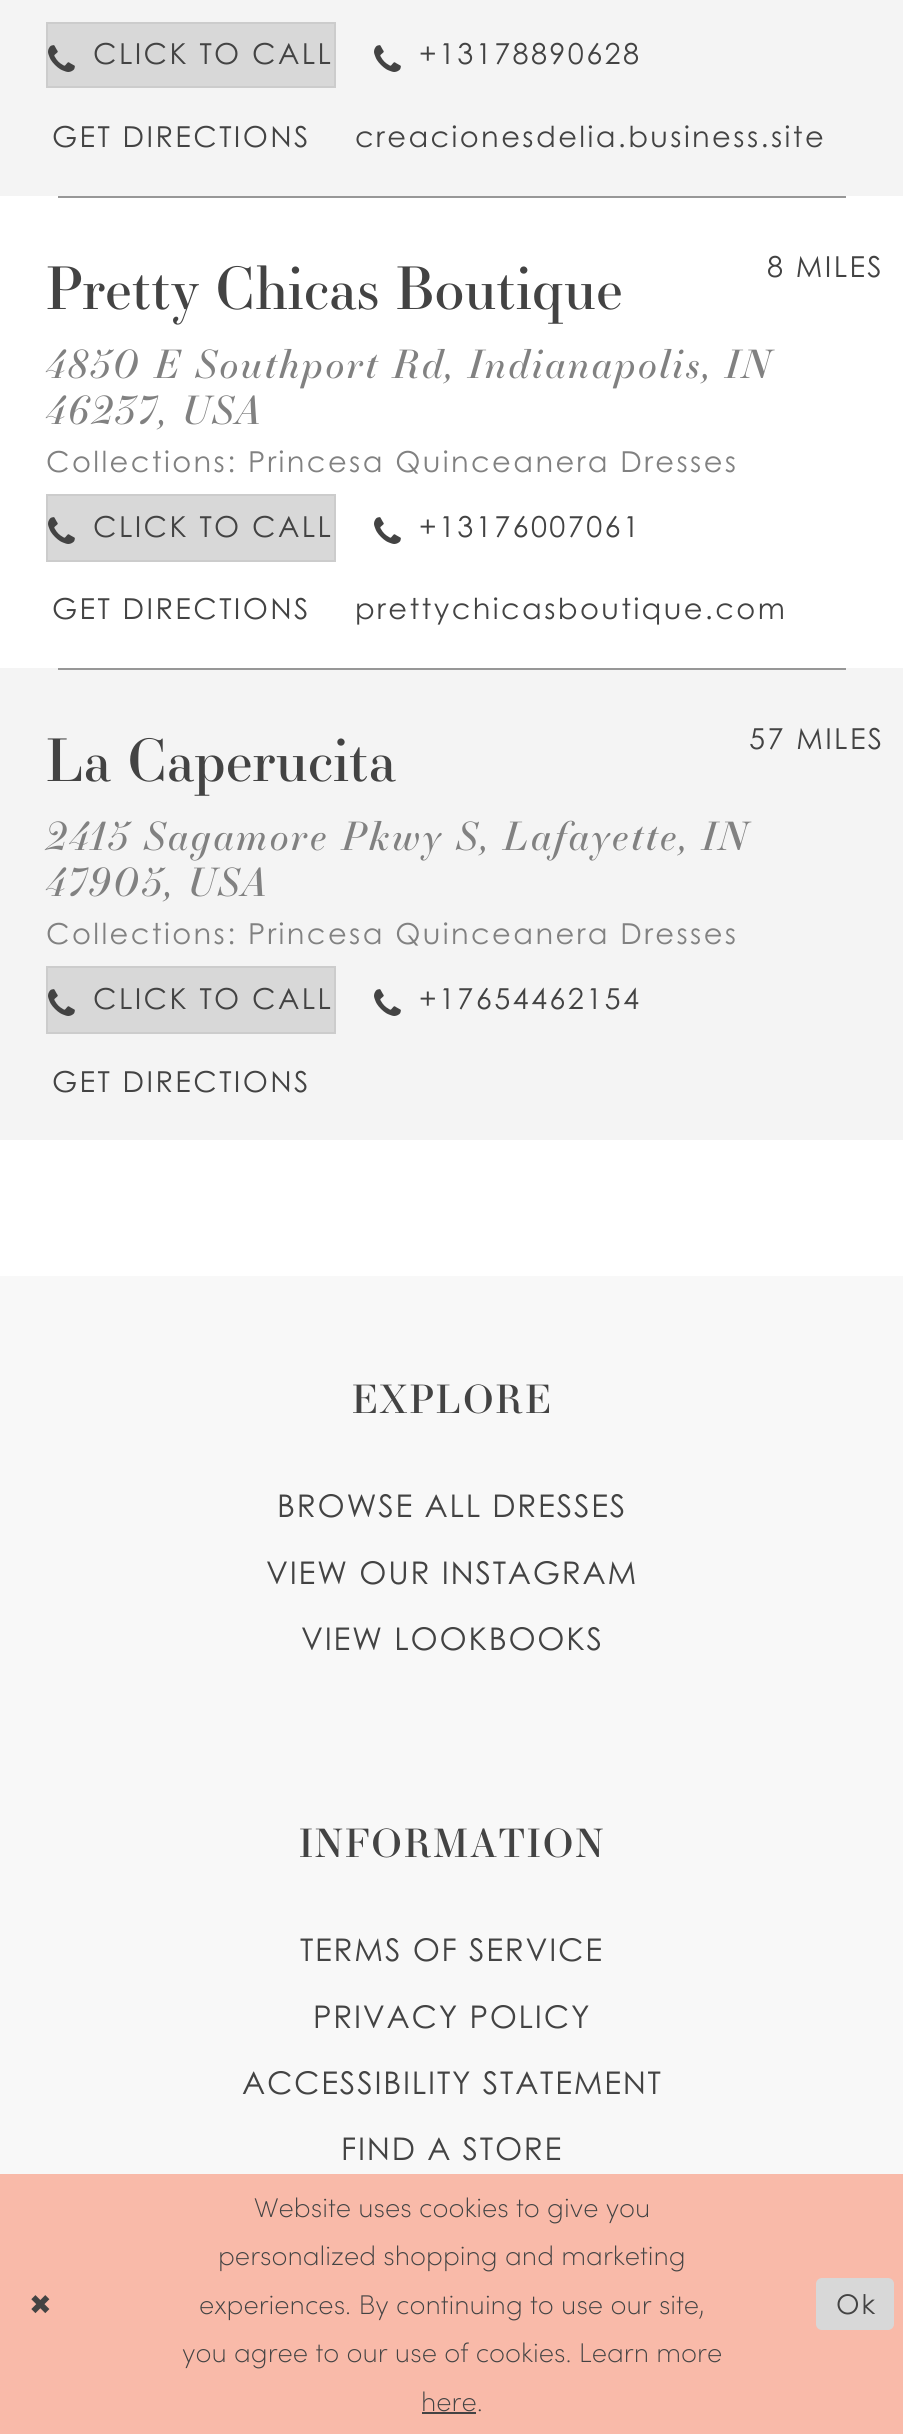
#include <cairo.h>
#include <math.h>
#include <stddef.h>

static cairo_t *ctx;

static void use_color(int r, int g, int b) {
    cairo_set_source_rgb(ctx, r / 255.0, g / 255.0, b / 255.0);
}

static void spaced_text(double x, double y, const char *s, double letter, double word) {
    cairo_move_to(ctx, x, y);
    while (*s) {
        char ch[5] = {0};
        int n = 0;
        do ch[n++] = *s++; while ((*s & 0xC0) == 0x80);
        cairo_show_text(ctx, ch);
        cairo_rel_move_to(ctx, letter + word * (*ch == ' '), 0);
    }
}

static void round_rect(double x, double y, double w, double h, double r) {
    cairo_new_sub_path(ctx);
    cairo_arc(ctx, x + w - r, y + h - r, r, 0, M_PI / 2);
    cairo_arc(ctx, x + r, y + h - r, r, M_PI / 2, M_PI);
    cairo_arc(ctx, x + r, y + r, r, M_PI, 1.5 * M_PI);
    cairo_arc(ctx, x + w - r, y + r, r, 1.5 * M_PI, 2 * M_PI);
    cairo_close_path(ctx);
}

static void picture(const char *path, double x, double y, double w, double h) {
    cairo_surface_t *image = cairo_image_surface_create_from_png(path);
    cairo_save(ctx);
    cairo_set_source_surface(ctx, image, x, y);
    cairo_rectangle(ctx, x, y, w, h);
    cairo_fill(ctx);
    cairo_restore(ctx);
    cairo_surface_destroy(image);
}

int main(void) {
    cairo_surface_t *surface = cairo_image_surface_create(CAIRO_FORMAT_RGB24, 903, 2434);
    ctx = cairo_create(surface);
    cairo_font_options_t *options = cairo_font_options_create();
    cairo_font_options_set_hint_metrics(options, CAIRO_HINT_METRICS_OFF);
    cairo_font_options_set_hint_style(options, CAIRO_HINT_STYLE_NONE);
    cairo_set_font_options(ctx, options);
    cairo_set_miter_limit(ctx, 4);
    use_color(255, 255, 255);
    cairo_paint(ctx);
    use_color(244, 244, 244);
    cairo_rectangle(ctx, 0, 0, 903, 196);
    cairo_fill(ctx);
    use_color(216, 216, 216);
    cairo_rectangle(ctx, 47, 23, 288, 64);
    cairo_fill_preserve(ctx);
    use_color(204, 204, 204);
    cairo_stroke(ctx);
    picture("img1.png", 48, 45, 27, 27);
    cairo_select_font_face(ctx, "Century Gothic", CAIRO_FONT_SLANT_NORMAL, CAIRO_FONT_WEIGHT_NORMAL);
    cairo_set_font_size(ctx, 28.9);
    use_color(67, 67, 67);
    spaced_text(93, 64, "CLICK TO CALL", 2.4, 0);
    picture("img2.png", 374, 45, 27, 27);
    spaced_text(419, 64, "+13178890628", 2.4, 0);
    spaced_text(52, 147, "GET DIRECTIONS", 2.4, 0);
    spaced_text(355, 147, "creacionesdelia.business.site", 2.4, 0);
    use_color(151, 151, 151);
    cairo_rectangle(ctx, 58, 196, 788, 2);
    cairo_fill(ctx);
    cairo_select_font_face(ctx, "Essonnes", CAIRO_FONT_SLANT_NORMAL, CAIRO_FONT_WEIGHT_NORMAL);
    cairo_set_font_size(ctx, 57.9);
    use_color(67, 67, 67);
    cairo_move_to(ctx, 46, 309);
    cairo_show_text(ctx, "Pretty Chicas Boutique");
    cairo_select_font_face(ctx, "Century Gothic", CAIRO_FONT_SLANT_NORMAL, CAIRO_FONT_WEIGHT_NORMAL);
    cairo_set_font_size(ctx, 28.9);
    spaced_text(767, 277, "8 MILES", 2.4, 0);
    cairo_select_font_face(ctx, "Essonnes", CAIRO_FONT_SLANT_ITALIC, CAIRO_FONT_WEIGHT_NORMAL);
    cairo_set_font_size(ctx, 38.6);
    use_color(129, 129, 129);
    spaced_text(46, 378, "4850 E Southport Rd, Indianapolis, IN", 2.4, 0);
    spaced_text(46, 424, "46237, USA", 2.4, 0);
    cairo_select_font_face(ctx, "Century Gothic", CAIRO_FONT_SLANT_NORMAL, CAIRO_FONT_WEIGHT_NORMAL);
    cairo_set_font_size(ctx, 28.9);
    spaced_text(46, 472, "Collections: Princesa Quinceanera Dresses", 2.4, 0);
    use_color(216, 216, 216);
    cairo_rectangle(ctx, 47, 495, 288, 66);
    cairo_fill_preserve(ctx);
    use_color(204, 204, 204);
    cairo_stroke(ctx);
    picture("img1.png", 48, 517, 27, 27);
    use_color(67, 67, 67);
    spaced_text(93, 537, "CLICK TO CALL", 2.4, 0);
    picture("img3.png", 374, 517, 27, 27);
    spaced_text(419, 537, "+13176007061", 2.4, 0);
    spaced_text(52, 619, "GET DIRECTIONS", 2.4, 0);
    spaced_text(355, 619, "prettychicasboutique.com", 2.4, 0);
    use_color(244, 244, 244);
    cairo_rectangle(ctx, 0, 668, 903, 472);
    cairo_fill(ctx);
    use_color(151, 151, 151);
    cairo_rectangle(ctx, 58, 668, 788, 2);
    cairo_fill(ctx);
    cairo_select_font_face(ctx, "Essonnes", CAIRO_FONT_SLANT_NORMAL, CAIRO_FONT_WEIGHT_NORMAL);
    cairo_set_font_size(ctx, 57.9);
    use_color(67, 67, 67);
    cairo_move_to(ctx, 46, 781);
    cairo_show_text(ctx, "La Caperucita");
    cairo_select_font_face(ctx, "Century Gothic", CAIRO_FONT_SLANT_NORMAL, CAIRO_FONT_WEIGHT_NORMAL);
    cairo_set_font_size(ctx, 28.9);
    spaced_text(749, 749, "57 MILES", 2.4, 0);
    cairo_select_font_face(ctx, "Essonnes", CAIRO_FONT_SLANT_ITALIC, CAIRO_FONT_WEIGHT_NORMAL);
    cairo_set_font_size(ctx, 38.6);
    use_color(129, 129, 129);
    spaced_text(46, 850, "2415 Sagamore Pkwy S, Lafayette, IN", 2.4, 0);
    spaced_text(46, 896, "47905, USA", 2.4, 0);
    cairo_select_font_face(ctx, "Century Gothic", CAIRO_FONT_SLANT_NORMAL, CAIRO_FONT_WEIGHT_NORMAL);
    cairo_set_font_size(ctx, 28.9);
    spaced_text(46, 944, "Collections: Princesa Quinceanera Dresses", 2.4, 0);
    use_color(216, 216, 216);
    cairo_rectangle(ctx, 47, 967, 288, 66);
    cairo_fill_preserve(ctx);
    use_color(204, 204, 204);
    cairo_stroke(ctx);
    picture("img1.png", 48, 989, 27, 27);
    use_color(67, 67, 67);
    spaced_text(93, 1009, "CLICK TO CALL", 2.4, 0);
    picture("img2.png", 374, 989, 27, 27);
    spaced_text(419, 1009, "+17654462154", 2.4, 0);
    spaced_text(52, 1092, "GET DIRECTIONS", 2.4, 0);
    use_color(248, 248, 248);
    cairo_rectangle(ctx, 0, 1276, 903, 898);
    cairo_fill(ctx);
    cairo_select_font_face(ctx, "Essonnes", CAIRO_FONT_SLANT_NORMAL, CAIRO_FONT_WEIGHT_NORMAL);
    cairo_set_font_size(ctx, 38.6);
    use_color(67, 67, 67);
    spaced_text(352, 1413, "EXPLORE", 2.1, 0);
    cairo_select_font_face(ctx, "Century Gothic", CAIRO_FONT_SLANT_NORMAL, CAIRO_FONT_WEIGHT_NORMAL);
    cairo_set_font_size(ctx, 31.3);
    spaced_text(277, 1517, "BROWSE ALL DRESSES", 1.75, 0);
    spaced_text(266, 1584, "VIEW OUR INSTAGRAM", 1.75, 0);
    spaced_text(301, 1650, "VIEW LOOKBOOKS", 1.75, 0);
    cairo_select_font_face(ctx, "Essonnes", CAIRO_FONT_SLANT_NORMAL, CAIRO_FONT_WEIGHT_NORMAL);
    cairo_set_font_size(ctx, 38.6);
    spaced_text(299, 1857, "INFORMATION", 2.1, 0);
    cairo_select_font_face(ctx, "Century Gothic", CAIRO_FONT_SLANT_NORMAL, CAIRO_FONT_WEIGHT_NORMAL);
    cairo_set_font_size(ctx, 31.3);
    spaced_text(300, 1961, "TERMS OF SERVICE", 1.75, 0);
    spaced_text(313, 2028, "PRIVACY POLICY", 1.75, 0);
    spaced_text(242, 2094, "ACCESSIBILITY STATEMENT", 1.75, 0);
    spaced_text(341, 2160, "FIND A STORE", 1.75, 0);
    use_color(249, 186, 169);
    cairo_rectangle(ctx, 0, 2174, 903, 260);
    cairo_fill(ctx);
    cairo_select_font_face(ctx, "DejaVu Sans", CAIRO_FONT_SLANT_NORMAL, CAIRO_FONT_WEIGHT_NORMAL);
    cairo_set_font_size(ctx, 27.1);
    use_color(67, 67, 67);
    spaced_text(29, 2314, "✖", 2, 0);
    cairo_select_font_face(ctx, "Sofia ExtraLight", CAIRO_FONT_SLANT_NORMAL, CAIRO_FONT_WEIGHT_NORMAL);
    cairo_move_to(ctx, 254, 2217);
    cairo_show_text(ctx, "Website uses cookies to give you");
    cairo_move_to(ctx, 218, 2265);
    cairo_show_text(ctx, "personalized shopping and marketing");
    cairo_move_to(ctx, 199, 2314);
    cairo_show_text(ctx, "experiences. By continuing to use our site,");
    cairo_move_to(ctx, 182, 2362);
    cairo_show_text(ctx, "you agree to our use of cookies. Learn more");
    cairo_move_to(ctx, 421, 2411);
    cairo_show_text(ctx, "here.");
    cairo_rectangle(ctx, 422, 2412, 54, 2);
    cairo_fill(ctx);
    use_color(216, 216, 216);
    round_rect(816, 2278, 78, 52, 6);
    cairo_fill(ctx);
    cairo_select_font_face(ctx, "Century Gothic", CAIRO_FONT_SLANT_NORMAL, CAIRO_FONT_WEIGHT_NORMAL);
    use_color(67, 67, 67);
    spaced_text(836, 2314, "Ok", 2, 0);
    cairo_surface_write_to_png(surface, "result.png");
    cairo_font_options_destroy(options);
    cairo_destroy(ctx);
    cairo_surface_destroy(surface);
    return 0;
}
